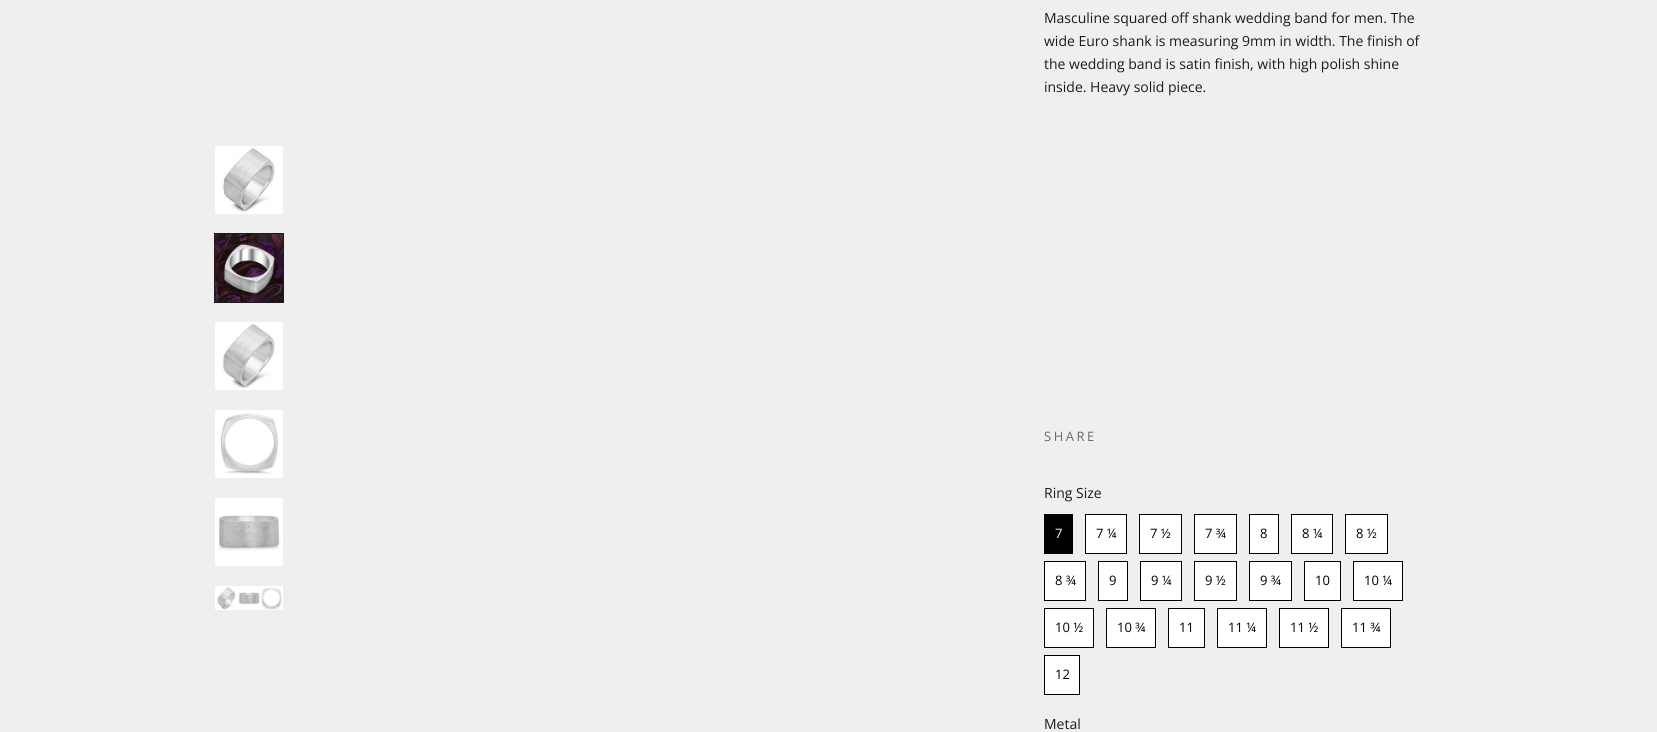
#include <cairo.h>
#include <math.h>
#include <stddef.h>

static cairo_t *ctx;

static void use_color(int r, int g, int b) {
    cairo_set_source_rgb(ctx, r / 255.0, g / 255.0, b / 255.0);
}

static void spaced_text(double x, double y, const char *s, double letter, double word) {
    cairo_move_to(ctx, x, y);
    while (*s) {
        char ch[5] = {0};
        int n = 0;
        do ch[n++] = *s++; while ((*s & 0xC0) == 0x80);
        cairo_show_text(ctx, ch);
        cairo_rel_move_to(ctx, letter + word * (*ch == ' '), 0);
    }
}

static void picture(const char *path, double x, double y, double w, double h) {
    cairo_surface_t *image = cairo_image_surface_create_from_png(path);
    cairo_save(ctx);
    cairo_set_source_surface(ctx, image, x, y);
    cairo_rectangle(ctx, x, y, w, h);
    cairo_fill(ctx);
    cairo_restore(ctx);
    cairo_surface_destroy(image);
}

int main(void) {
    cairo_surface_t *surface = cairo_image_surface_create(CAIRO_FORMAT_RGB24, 1657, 732);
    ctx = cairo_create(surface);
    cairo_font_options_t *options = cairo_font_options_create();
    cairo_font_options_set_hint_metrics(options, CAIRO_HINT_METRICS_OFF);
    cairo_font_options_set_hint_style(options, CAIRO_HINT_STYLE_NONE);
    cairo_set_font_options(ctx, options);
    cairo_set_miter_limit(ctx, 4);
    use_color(239, 239, 239);
    cairo_paint(ctx);
    picture("img1.png", 215, 146, 68, 68);
    cairo_rectangle(ctx, 214.5, 233.5, 69, 69);
    use_color(28, 27, 27);
    cairo_set_line_width(ctx, 1);
    cairo_stroke(ctx);
    picture("img2.png", 215, 234, 68, 68);
    picture("img3.png", 215, 322, 68, 68);
    picture("img4.png", 215, 410, 68, 68);
    picture("img5.png", 215, 498, 68, 68);
    picture("img6.png", 215, 586, 68, 24);
    cairo_select_font_face(ctx, "Open Sans", CAIRO_FONT_SLANT_NORMAL, CAIRO_FONT_WEIGHT_NORMAL);
    cairo_set_font_size(ctx, 14);
    cairo_move_to(ctx, 1044, 23);
    cairo_show_text(ctx, "Masculine squared off shank wedding band for men. The");
    cairo_move_to(ctx, 1044, 46);
    cairo_show_text(ctx, "wide Euro shank is measuring 9mm in width. The finish of");
    cairo_move_to(ctx, 1044, 69);
    cairo_show_text(ctx, "the wedding band is satin finish, with high polish shine");
    cairo_move_to(ctx, 1044, 92);
    cairo_show_text(ctx, "inside. Heavy solid piece.");
    cairo_set_font_size(ctx, 13);
    use_color(106, 106, 106);
    spaced_text(1044, 441, "SHARE", 2.5, 0);
    cairo_set_font_size(ctx, 14);
    use_color(28, 27, 27);
    cairo_move_to(ctx, 1044, 498);
    cairo_show_text(ctx, "Ring Size");
    cairo_rectangle(ctx, 1044.5, 514.5, 28, 39);
    use_color(0, 0, 0);
    cairo_stroke(ctx);
    cairo_rectangle(ctx, 1045, 515, 27, 38);
    cairo_fill(ctx);
    cairo_set_font_size(ctx, 13);
    use_color(255, 255, 255);
    cairo_move_to(ctx, 1055, 538);
    cairo_show_text(ctx, "7");
    cairo_rectangle(ctx, 1085.5, 514.5, 41, 39);
    use_color(0, 0, 0);
    cairo_stroke(ctx);
    use_color(255, 255, 255);
    cairo_rectangle(ctx, 1086, 515, 40, 38);
    cairo_fill(ctx);
    use_color(0, 0, 0);
    cairo_move_to(ctx, 1096, 538);
    cairo_show_text(ctx, "7 ¼");
    cairo_rectangle(ctx, 1139.5, 514.5, 42, 39);
    cairo_stroke(ctx);
    use_color(255, 255, 255);
    cairo_rectangle(ctx, 1140, 515, 41, 38);
    cairo_fill(ctx);
    use_color(0, 0, 0);
    cairo_move_to(ctx, 1150, 538);
    cairo_show_text(ctx, "7 ½");
    cairo_rectangle(ctx, 1194.5, 514.5, 42, 39);
    cairo_stroke(ctx);
    use_color(255, 255, 255);
    cairo_rectangle(ctx, 1195, 515, 41, 38);
    cairo_fill(ctx);
    use_color(0, 0, 0);
    cairo_move_to(ctx, 1205, 538);
    cairo_show_text(ctx, "7 ¾");
    cairo_rectangle(ctx, 1249.5, 514.5, 29, 39);
    cairo_stroke(ctx);
    use_color(255, 255, 255);
    cairo_rectangle(ctx, 1250, 515, 28, 38);
    cairo_fill(ctx);
    use_color(0, 0, 0);
    cairo_move_to(ctx, 1260, 538);
    cairo_show_text(ctx, "8");
    cairo_rectangle(ctx, 1291.5, 514.5, 41, 39);
    cairo_stroke(ctx);
    use_color(255, 255, 255);
    cairo_rectangle(ctx, 1292, 515, 40, 38);
    cairo_fill(ctx);
    use_color(0, 0, 0);
    cairo_move_to(ctx, 1302, 538);
    cairo_show_text(ctx, "8 ¼");
    cairo_rectangle(ctx, 1345.5, 514.5, 42, 39);
    cairo_stroke(ctx);
    use_color(255, 255, 255);
    cairo_rectangle(ctx, 1346, 515, 41, 38);
    cairo_fill(ctx);
    use_color(0, 0, 0);
    cairo_move_to(ctx, 1356, 538);
    cairo_show_text(ctx, "8 ½");
    cairo_rectangle(ctx, 1044.5, 561.5, 41, 39);
    cairo_stroke(ctx);
    use_color(255, 255, 255);
    cairo_rectangle(ctx, 1045, 562, 40, 38);
    cairo_fill(ctx);
    use_color(0, 0, 0);
    cairo_move_to(ctx, 1055, 585);
    cairo_show_text(ctx, "8 ¾");
    cairo_rectangle(ctx, 1098.5, 561.5, 29, 39);
    cairo_stroke(ctx);
    use_color(255, 255, 255);
    cairo_rectangle(ctx, 1099, 562, 28, 38);
    cairo_fill(ctx);
    use_color(0, 0, 0);
    cairo_move_to(ctx, 1109, 585);
    cairo_show_text(ctx, "9");
    cairo_rectangle(ctx, 1140.5, 561.5, 41, 39);
    cairo_stroke(ctx);
    use_color(255, 255, 255);
    cairo_rectangle(ctx, 1141, 562, 40, 38);
    cairo_fill(ctx);
    use_color(0, 0, 0);
    cairo_move_to(ctx, 1151, 585);
    cairo_show_text(ctx, "9 ¼");
    cairo_rectangle(ctx, 1194.5, 561.5, 42, 39);
    cairo_stroke(ctx);
    use_color(255, 255, 255);
    cairo_rectangle(ctx, 1195, 562, 41, 38);
    cairo_fill(ctx);
    use_color(0, 0, 0);
    cairo_move_to(ctx, 1205, 585);
    cairo_show_text(ctx, "9 ½");
    cairo_rectangle(ctx, 1249.5, 561.5, 42, 39);
    cairo_stroke(ctx);
    use_color(255, 255, 255);
    cairo_rectangle(ctx, 1250, 562, 41, 38);
    cairo_fill(ctx);
    use_color(0, 0, 0);
    cairo_move_to(ctx, 1260, 585);
    cairo_show_text(ctx, "9 ¾");
    cairo_rectangle(ctx, 1304.5, 561.5, 36, 39);
    cairo_stroke(ctx);
    use_color(255, 255, 255);
    cairo_rectangle(ctx, 1305, 562, 35, 38);
    cairo_fill(ctx);
    use_color(0, 0, 0);
    cairo_move_to(ctx, 1315, 585);
    cairo_show_text(ctx, "10");
    cairo_rectangle(ctx, 1353.5, 561.5, 49, 39);
    cairo_stroke(ctx);
    use_color(255, 255, 255);
    cairo_rectangle(ctx, 1354, 562, 48, 38);
    cairo_fill(ctx);
    use_color(0, 0, 0);
    cairo_move_to(ctx, 1364, 585);
    cairo_show_text(ctx, "10 ¼");
    cairo_rectangle(ctx, 1044.5, 608.5, 49, 39);
    cairo_stroke(ctx);
    use_color(255, 255, 255);
    cairo_rectangle(ctx, 1045, 609, 48, 38);
    cairo_fill(ctx);
    use_color(0, 0, 0);
    cairo_move_to(ctx, 1055, 632);
    cairo_show_text(ctx, "10 ½");
    cairo_rectangle(ctx, 1106.5, 608.5, 49, 39);
    cairo_stroke(ctx);
    use_color(255, 255, 255);
    cairo_rectangle(ctx, 1107, 609, 48, 38);
    cairo_fill(ctx);
    use_color(0, 0, 0);
    cairo_move_to(ctx, 1117, 632);
    cairo_show_text(ctx, "10 ¾");
    cairo_rectangle(ctx, 1168.5, 608.5, 36, 39);
    cairo_stroke(ctx);
    use_color(255, 255, 255);
    cairo_rectangle(ctx, 1169, 609, 35, 38);
    cairo_fill(ctx);
    use_color(0, 0, 0);
    cairo_move_to(ctx, 1179, 632);
    cairo_show_text(ctx, "11");
    cairo_rectangle(ctx, 1217.5, 608.5, 49, 39);
    cairo_stroke(ctx);
    use_color(255, 255, 255);
    cairo_rectangle(ctx, 1218, 609, 48, 38);
    cairo_fill(ctx);
    use_color(0, 0, 0);
    cairo_move_to(ctx, 1228, 632);
    cairo_show_text(ctx, "11 ¼");
    cairo_rectangle(ctx, 1279.5, 608.5, 49, 39);
    cairo_stroke(ctx);
    use_color(255, 255, 255);
    cairo_rectangle(ctx, 1280, 609, 48, 38);
    cairo_fill(ctx);
    use_color(0, 0, 0);
    cairo_move_to(ctx, 1290, 632);
    cairo_show_text(ctx, "11 ½");
    cairo_rectangle(ctx, 1341.5, 608.5, 49, 39);
    cairo_stroke(ctx);
    use_color(255, 255, 255);
    cairo_rectangle(ctx, 1342, 609, 48, 38);
    cairo_fill(ctx);
    use_color(0, 0, 0);
    cairo_move_to(ctx, 1352, 632);
    cairo_show_text(ctx, "11 ¾");
    cairo_rectangle(ctx, 1044.5, 655.5, 35, 39);
    cairo_stroke(ctx);
    use_color(255, 255, 255);
    cairo_rectangle(ctx, 1045, 656, 34, 38);
    cairo_fill(ctx);
    use_color(0, 0, 0);
    cairo_move_to(ctx, 1055, 679);
    cairo_show_text(ctx, "12");
    cairo_set_font_size(ctx, 14);
    use_color(28, 27, 27);
    cairo_move_to(ctx, 1044, 729);
    cairo_show_text(ctx, "Metal");
    cairo_surface_write_to_png(surface, "result.png");
    cairo_font_options_destroy(options);
    cairo_destroy(ctx);
    cairo_surface_destroy(surface);
    return 0;
}
